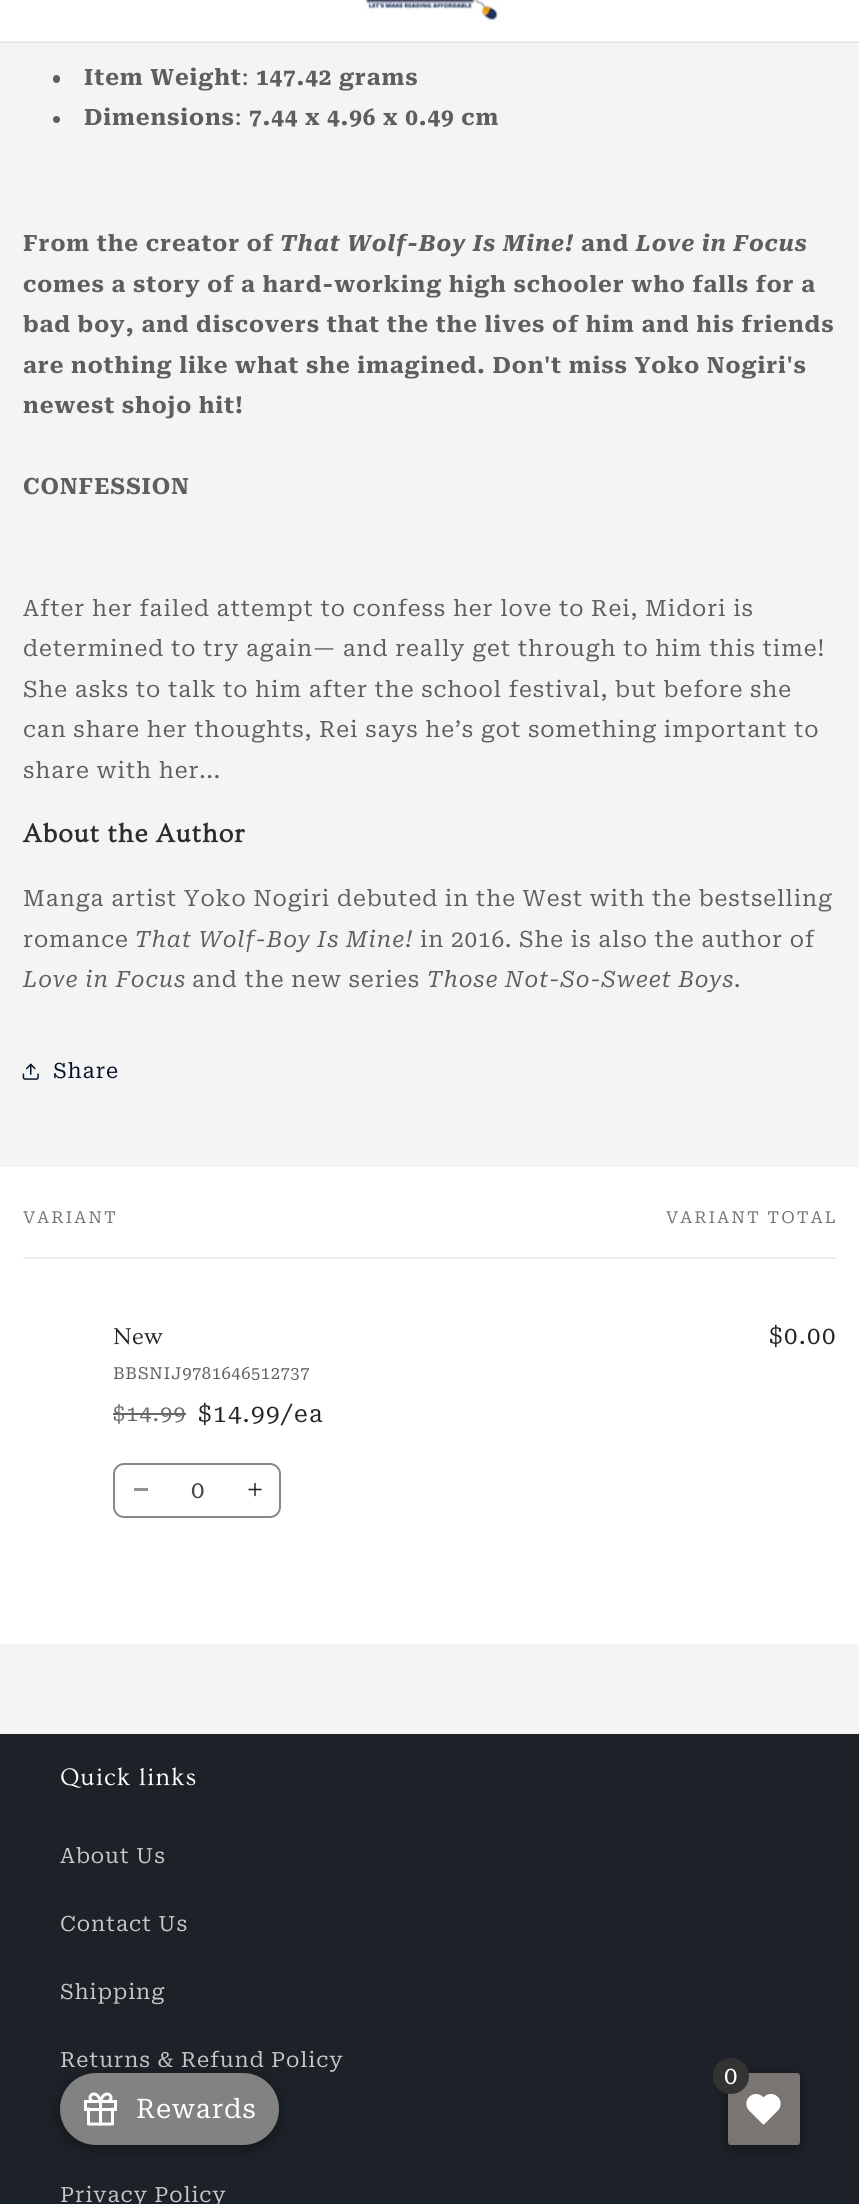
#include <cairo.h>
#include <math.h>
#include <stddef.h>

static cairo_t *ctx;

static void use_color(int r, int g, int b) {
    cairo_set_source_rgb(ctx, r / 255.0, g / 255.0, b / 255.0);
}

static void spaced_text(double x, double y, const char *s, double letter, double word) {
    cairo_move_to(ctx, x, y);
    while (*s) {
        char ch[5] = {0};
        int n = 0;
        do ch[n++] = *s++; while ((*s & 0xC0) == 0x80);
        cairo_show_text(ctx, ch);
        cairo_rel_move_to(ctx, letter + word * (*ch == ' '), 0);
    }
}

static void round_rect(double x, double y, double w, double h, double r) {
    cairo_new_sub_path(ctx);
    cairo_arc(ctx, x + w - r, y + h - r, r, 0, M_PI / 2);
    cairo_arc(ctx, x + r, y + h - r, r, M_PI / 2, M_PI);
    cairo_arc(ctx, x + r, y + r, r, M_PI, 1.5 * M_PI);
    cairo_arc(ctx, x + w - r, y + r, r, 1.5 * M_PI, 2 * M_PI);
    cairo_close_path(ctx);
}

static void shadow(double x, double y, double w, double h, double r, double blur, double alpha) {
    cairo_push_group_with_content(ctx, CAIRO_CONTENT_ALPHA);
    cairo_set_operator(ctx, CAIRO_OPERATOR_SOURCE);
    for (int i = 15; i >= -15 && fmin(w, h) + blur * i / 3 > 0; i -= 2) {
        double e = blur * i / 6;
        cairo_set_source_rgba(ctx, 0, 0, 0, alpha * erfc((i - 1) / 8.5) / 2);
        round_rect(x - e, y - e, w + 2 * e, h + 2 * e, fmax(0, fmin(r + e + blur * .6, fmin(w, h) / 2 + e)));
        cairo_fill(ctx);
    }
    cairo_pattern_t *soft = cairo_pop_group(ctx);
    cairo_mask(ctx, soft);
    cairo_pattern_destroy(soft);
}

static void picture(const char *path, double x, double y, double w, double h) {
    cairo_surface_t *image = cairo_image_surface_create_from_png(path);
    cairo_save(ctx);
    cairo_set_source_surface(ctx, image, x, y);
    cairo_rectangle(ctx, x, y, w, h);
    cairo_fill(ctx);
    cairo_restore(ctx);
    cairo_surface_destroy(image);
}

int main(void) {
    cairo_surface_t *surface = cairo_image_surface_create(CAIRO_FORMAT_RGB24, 859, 2204);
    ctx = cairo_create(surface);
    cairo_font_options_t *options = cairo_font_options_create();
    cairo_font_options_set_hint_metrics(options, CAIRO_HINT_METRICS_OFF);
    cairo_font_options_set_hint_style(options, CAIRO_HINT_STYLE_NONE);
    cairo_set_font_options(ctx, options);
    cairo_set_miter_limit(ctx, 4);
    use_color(244, 244, 244);
    cairo_paint(ctx);
    use_color(255, 255, 255);
    cairo_rectangle(ctx, 0, 0, 859, 42);
    cairo_fill(ctx);
    cairo_set_source_rgba(ctx, 0.149, 0.149, 0.149, 0.08);
    cairo_rectangle(ctx, 0, 41, 859, 2);
    cairo_fill(ctx);
    picture("img1.png", 365, 0, 136, 23);
    use_color(93, 94, 95);
    round_rect(53, 75, 7, 8, 3.5);
    cairo_fill(ctx);
    cairo_select_font_face(ctx, "Roboto Serif", CAIRO_FONT_SLANT_NORMAL, CAIRO_FONT_WEIGHT_BOLD);
    cairo_set_font_size(ctx, 22.5);
    spaced_text(84, 85, "Item Weight", 0.9, 0);
    cairo_select_font_face(ctx, "Roboto Serif", CAIRO_FONT_SLANT_NORMAL, CAIRO_FONT_WEIGHT_NORMAL);
    spaced_text(242, 85, ":", 0.9, 0);
    cairo_select_font_face(ctx, "Roboto Serif", CAIRO_FONT_SLANT_NORMAL, CAIRO_FONT_WEIGHT_BOLD);
    spaced_text(256, 85, "147.42 grams", 0.9, 0);
    cairo_new_path(ctx);
    cairo_arc(ctx, 56.5, 119.5, 3.5, 0, 2 * M_PI);
    cairo_fill(ctx);
    spaced_text(84, 125, "Dimensions", 0.9, 0);
    cairo_select_font_face(ctx, "Roboto Serif", CAIRO_FONT_SLANT_NORMAL, CAIRO_FONT_WEIGHT_NORMAL);
    spaced_text(235, 125, ":", 0.9, 0);
    cairo_select_font_face(ctx, "Roboto Serif", CAIRO_FONT_SLANT_NORMAL, CAIRO_FONT_WEIGHT_BOLD);
    spaced_text(249, 125, "7.44 x 4.96 x 0.49 cm", 0.9, 0);
    spaced_text(23, 251, "From the creator of", 0.9, 0);
    cairo_select_font_face(ctx, "Roboto Serif", CAIRO_FONT_SLANT_ITALIC, CAIRO_FONT_WEIGHT_BOLD);
    spaced_text(280, 251, "That Wolf-Boy Is Mine!", 0.9, 0);
    cairo_select_font_face(ctx, "Roboto Serif", CAIRO_FONT_SLANT_NORMAL, CAIRO_FONT_WEIGHT_BOLD);
    spaced_text(581, 251, "and", 0.9, 0);
    cairo_select_font_face(ctx, "Roboto Serif", CAIRO_FONT_SLANT_ITALIC, CAIRO_FONT_WEIGHT_BOLD);
    spaced_text(636, 251, "Love in Focus", 0.9, 0);
    cairo_select_font_face(ctx, "Roboto Serif", CAIRO_FONT_SLANT_NORMAL, CAIRO_FONT_WEIGHT_BOLD);
    spaced_text(23, 292, "comes a story of a hard-working high schooler who falls for a", 0.9, 0);
    spaced_text(23, 332, "bad boy, and discovers that the the lives of him and his friends", 0.9, 0);
    spaced_text(23, 373, "are nothing like what she imagined. Don't miss Yoko Nogiri's", 0.9, 0);
    spaced_text(23, 413, "newest shojo hit!", 0.9, 0);
    spaced_text(23, 494, "CONFESSION", 0.9, 0);
    cairo_select_font_face(ctx, "Roboto Serif", CAIRO_FONT_SLANT_NORMAL, CAIRO_FONT_WEIGHT_NORMAL);
    spaced_text(23, 616, "After her failed attempt to confess her love to Rei, Midori is", 0.9, 0);
    spaced_text(23, 656, "determined to try again— and really get through to him this time!", 0.9, 0);
    spaced_text(23, 697, "She asks to talk to him after the school festival, but before she", 0.9, 0);
    spaced_text(23, 737, "can share her thoughts, Rei says he’s got something important to", 0.9, 0);
    spaced_text(23, 778, "share with her...", 0.9, 0);
    cairo_select_font_face(ctx, "Ovo", CAIRO_FONT_SLANT_NORMAL, CAIRO_FONT_WEIGHT_BOLD);
    cairo_set_font_size(ctx, 26.75);
    use_color(43, 44, 45);
    spaced_text(23, 842, "About the Author", 1, 0);
    cairo_select_font_face(ctx, "Roboto Serif", CAIRO_FONT_SLANT_NORMAL, CAIRO_FONT_WEIGHT_NORMAL);
    cairo_set_font_size(ctx, 22.5);
    use_color(93, 94, 95);
    spaced_text(23, 906, "Manga artist Yoko Nogiri debuted in the West with the bestselling", 0.9, 0);
    spaced_text(23, 947, "romance", 0.9, 0);
    cairo_select_font_face(ctx, "Roboto Serif", CAIRO_FONT_SLANT_ITALIC, CAIRO_FONT_WEIGHT_NORMAL);
    spaced_text(135, 947, "That Wolf-Boy Is Mine!", 0.9, 0);
    cairo_select_font_face(ctx, "Roboto Serif", CAIRO_FONT_SLANT_NORMAL, CAIRO_FONT_WEIGHT_NORMAL);
    spaced_text(420, 947, "in 2016. She is also the author of", 0.9, 0);
    cairo_select_font_face(ctx, "Roboto Serif", CAIRO_FONT_SLANT_ITALIC, CAIRO_FONT_WEIGHT_NORMAL);
    spaced_text(23, 987, "Love in Focus", 0.9, 0);
    cairo_select_font_face(ctx, "Roboto Serif", CAIRO_FONT_SLANT_NORMAL, CAIRO_FONT_WEIGHT_NORMAL);
    spaced_text(192, 987, "and the new series", 0.9, 0);
    cairo_select_font_face(ctx, "Roboto Serif", CAIRO_FONT_SLANT_ITALIC, CAIRO_FONT_WEIGHT_NORMAL);
    spaced_text(427, 987, "Those Not-So-Sweet Boys", 0.9, 0);
    cairo_select_font_face(ctx, "Roboto Serif", CAIRO_FONT_SLANT_NORMAL, CAIRO_FONT_WEIGHT_NORMAL);
    spaced_text(734, 987, ".", 0.9, 0);
    picture("img2.png", 22, 1063, 17, 17);
    cairo_select_font_face(ctx, "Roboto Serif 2", CAIRO_FONT_SLANT_NORMAL, CAIRO_FONT_WEIGHT_NORMAL);
    cairo_set_font_size(ctx, 21);
    use_color(0, 17, 40);
    spaced_text(53, 1078, "Share", 0.9, 0);
    use_color(255, 255, 255);
    cairo_rectangle(ctx, 0, 1167, 859, 477);
    cairo_fill(ctx);
    use_color(238, 238, 238);
    cairo_rectangle(ctx, 23, 1257, 814, 2);
    cairo_fill(ctx);
    cairo_select_font_face(ctx, "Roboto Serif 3", CAIRO_FONT_SLANT_NORMAL, CAIRO_FONT_WEIGHT_NORMAL);
    cairo_set_font_size(ctx, 16.5);
    use_color(117, 117, 117);
    spaced_text(23, 1223, "VARIANT", 2, 0);
    spaced_text(666, 1223, "VARIANT TOTAL", 2, 0);
    cairo_select_font_face(ctx, "Ovo", CAIRO_FONT_SLANT_NORMAL, CAIRO_FONT_WEIGHT_NORMAL);
    cairo_set_font_size(ctx, 24);
    use_color(38, 38, 38);
    spaced_text(113, 1344, "New", 0.9, 0);
    cairo_select_font_face(ctx, "Roboto Serif 3", CAIRO_FONT_SLANT_NORMAL, CAIRO_FONT_WEIGHT_NORMAL);
    cairo_set_font_size(ctx, 16.5);
    use_color(93, 94, 95);
    spaced_text(113, 1379, "BBSNIJ9781646512737", 0.6, 0);
    cairo_select_font_face(ctx, "Roboto Serif 2", CAIRO_FONT_SLANT_NORMAL, CAIRO_FONT_WEIGHT_NORMAL);
    cairo_set_font_size(ctx, 21);
    use_color(103, 103, 103);
    spaced_text(113, 1421, "$14.99", 1.5, 0);
    cairo_rectangle(ctx, 113, 1413, 73, 2);
    cairo_fill(ctx);
    cairo_select_font_face(ctx, "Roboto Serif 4", CAIRO_FONT_SLANT_NORMAL, CAIRO_FONT_WEIGHT_NORMAL);
    cairo_set_font_size(ctx, 24);
    use_color(38, 38, 38);
    spaced_text(198, 1422, "$14.99/ea", 1.5, 0);
    spaced_text(769, 1344, "$0.00", 1.5, 0);
    use_color(147, 147, 147);
    cairo_rectangle(ctx, 134, 1488, 14, 3);
    cairo_fill(ctx);
    picture("img3.png", 248, 1482, 14, 15);
    round_rect(114, 1464, 166, 53, 10);
    use_color(136, 136, 136);
    cairo_stroke(ctx);
    cairo_select_font_face(ctx, "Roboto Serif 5", CAIRO_FONT_SLANT_NORMAL, CAIRO_FONT_WEIGHT_NORMAL);
    use_color(71, 71, 71);
    cairo_move_to(ctx, 191, 1498);
    cairo_show_text(ctx, "0");
    use_color(28, 34, 40);
    cairo_rectangle(ctx, 0, 1734, 859, 470);
    cairo_fill(ctx);
    cairo_select_font_face(ctx, "Ovo", CAIRO_FONT_SLANT_NORMAL, CAIRO_FONT_WEIGHT_NORMAL);
    cairo_set_font_size(ctx, 25.25);
    use_color(255, 255, 255);
    spaced_text(60, 1785, "Quick links", 1, 0);
    cairo_select_font_face(ctx, "Roboto Serif 2", CAIRO_FONT_SLANT_NORMAL, CAIRO_FONT_WEIGHT_NORMAL);
    cairo_set_font_size(ctx, 21);
    use_color(198, 200, 201);
    spaced_text(60, 1863, "About Us", 0.9, 0);
    spaced_text(60, 1931, "Contact Us", 0.9, 0);
    spaced_text(60, 1999, "Shipping", 0.9, 0);
    spaced_text(60, 2067, "Returns & Refund Policy", 0.9, 0);
    spaced_text(60, 2202, "Privacy Policy", 0.9, 0);
    use_color(0, 0, 0);
    shadow(731, 2079, 66, 66, 0, 9, 0.5);
    use_color(121, 117, 114);
    round_rect(728, 2073, 72, 72, 3);
    cairo_fill(ctx);
    use_color(51, 51, 51);
    cairo_arc(ctx, 731, 2076, 18, 0, 2 * M_PI);
    cairo_fill(ctx);
    cairo_select_font_face(ctx, "Roboto Serif 4", CAIRO_FONT_SLANT_NORMAL, CAIRO_FONT_WEIGHT_NORMAL);
    cairo_set_font_size(ctx, 24);
    use_color(255, 255, 255);
    spaced_text(724, 2084, "0", 0.9, 0);
    picture("img4.png", 746, 2094, 35, 31);
    use_color(0, 0, 0);
    shadow(63, 2079, 213, 66, 33, 9, 0.5);
    use_color(130, 130, 130);
    round_rect(60, 2073, 219, 72, 36);
    cairo_fill(ctx);
    picture("img5.png", 84, 2092, 33, 34);
    cairo_select_font_face(ctx, "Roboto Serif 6", CAIRO_FONT_SLANT_NORMAL, CAIRO_FONT_WEIGHT_NORMAL);
    cairo_set_font_size(ctx, 27);
    use_color(255, 255, 255);
    spaced_text(136, 2118, "Rewards", 0.9, 0);
    cairo_surface_write_to_png(surface, "result.png");
    cairo_font_options_destroy(options);
    cairo_destroy(ctx);
    cairo_surface_destroy(surface);
    return 0;
}
